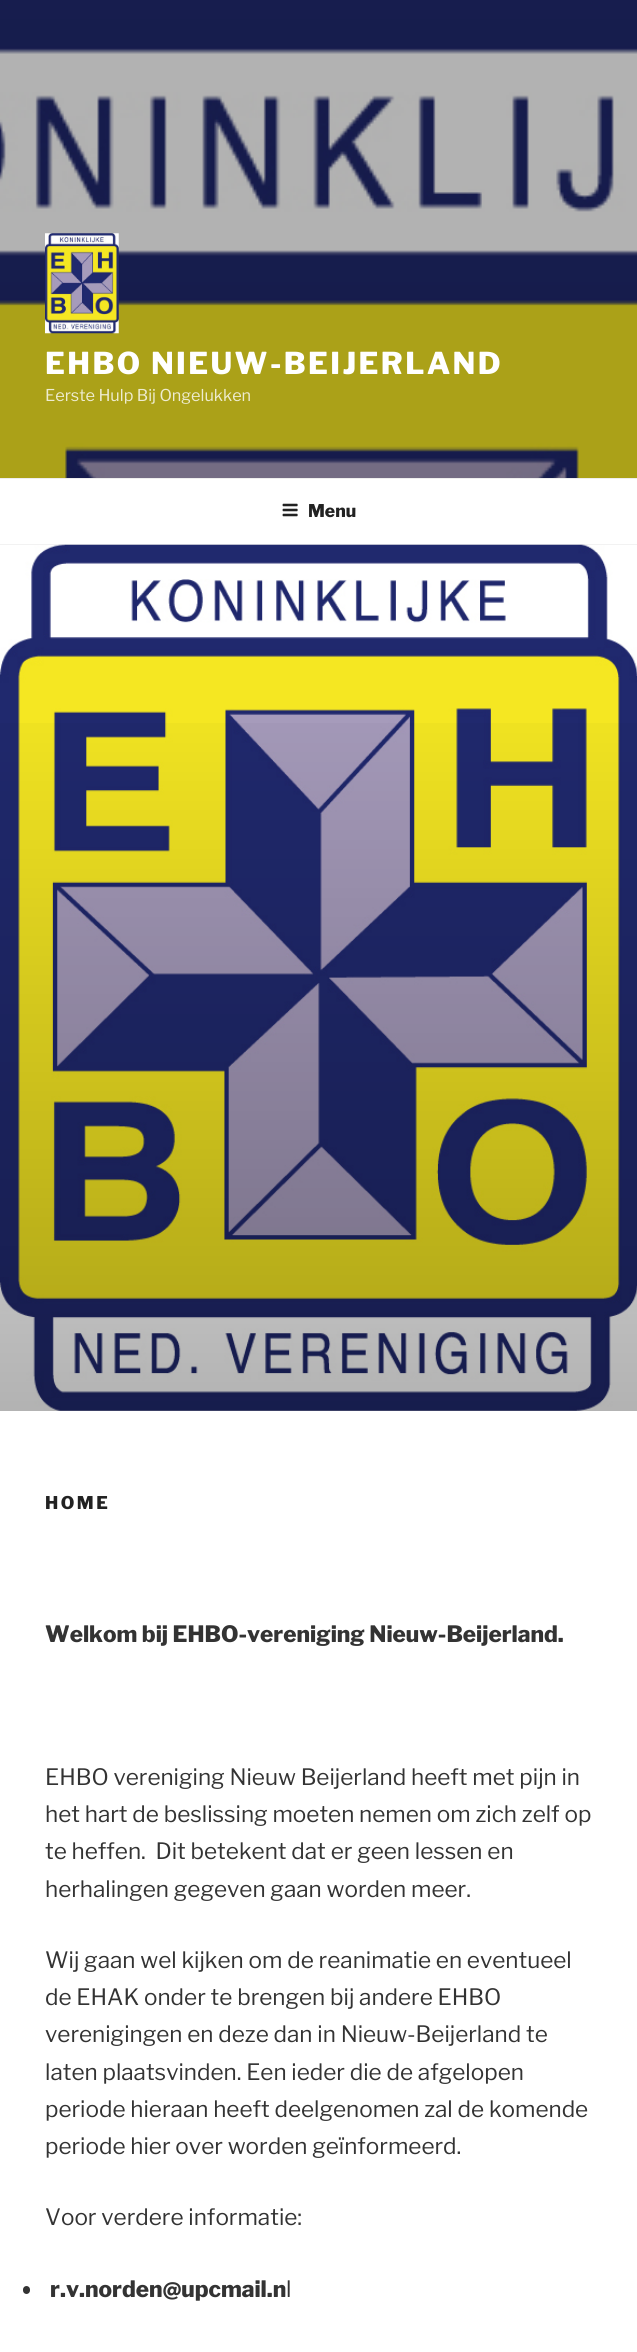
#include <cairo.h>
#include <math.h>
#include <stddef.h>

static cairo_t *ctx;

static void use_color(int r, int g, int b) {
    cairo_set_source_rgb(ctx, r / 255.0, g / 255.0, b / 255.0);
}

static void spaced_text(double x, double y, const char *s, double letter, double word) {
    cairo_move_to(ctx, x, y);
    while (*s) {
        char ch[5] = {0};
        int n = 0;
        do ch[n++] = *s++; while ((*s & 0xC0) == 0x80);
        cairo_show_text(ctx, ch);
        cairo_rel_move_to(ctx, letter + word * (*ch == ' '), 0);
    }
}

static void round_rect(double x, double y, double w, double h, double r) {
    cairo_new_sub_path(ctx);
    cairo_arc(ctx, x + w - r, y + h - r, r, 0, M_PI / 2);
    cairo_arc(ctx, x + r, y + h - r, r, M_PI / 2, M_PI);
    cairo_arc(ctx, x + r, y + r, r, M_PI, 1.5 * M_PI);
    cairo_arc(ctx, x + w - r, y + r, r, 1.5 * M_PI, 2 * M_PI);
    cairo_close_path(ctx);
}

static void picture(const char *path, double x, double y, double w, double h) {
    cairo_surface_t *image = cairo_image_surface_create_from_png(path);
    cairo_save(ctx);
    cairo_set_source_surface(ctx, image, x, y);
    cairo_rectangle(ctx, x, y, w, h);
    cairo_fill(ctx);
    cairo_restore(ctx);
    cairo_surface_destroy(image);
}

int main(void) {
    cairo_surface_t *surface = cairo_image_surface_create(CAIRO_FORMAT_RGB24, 637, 2352);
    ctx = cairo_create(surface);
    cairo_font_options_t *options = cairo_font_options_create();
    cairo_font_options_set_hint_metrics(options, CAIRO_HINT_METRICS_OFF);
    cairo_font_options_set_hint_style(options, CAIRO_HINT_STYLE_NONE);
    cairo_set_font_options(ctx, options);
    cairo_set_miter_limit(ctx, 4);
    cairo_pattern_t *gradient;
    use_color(255, 255, 255);
    cairo_paint(ctx);
    picture("img1.png", 0, 0, 637, 478);
    picture("img2.png", 45, 233, 74, 101);
    cairo_select_font_face(ctx, "Libre Franklin ExtraBold", CAIRO_FONT_SLANT_NORMAL, CAIRO_FONT_WEIGHT_NORMAL);
    cairo_set_font_size(ctx, 30);
    use_color(255, 255, 255);
    spaced_text(45, 374, "EHBO NIEUW-BEIJERLAND", 2.4, 0);
    cairo_select_font_face(ctx, "Libre Franklin", CAIRO_FONT_SLANT_NORMAL, CAIRO_FONT_WEIGHT_NORMAL);
    cairo_set_font_size(ctx, 16.25);
    use_color(238, 236, 209);
    cairo_move_to(ctx, 45, 401);
    cairo_show_text(ctx, "Eerste Hulp Bij Ongelukken");
    use_color(238, 238, 238);
    cairo_rectangle(ctx, 0, 478, 637, 1);
    cairo_fill(ctx);
    cairo_rectangle(ctx, 0, 544, 637, 1);
    cairo_fill(ctx);
    picture("img3.png", 282, 503, 16, 14);
    cairo_select_font_face(ctx, "Libre Franklin ExtraBold", CAIRO_FONT_SLANT_NORMAL, CAIRO_FONT_WEIGHT_NORMAL);
    cairo_set_font_size(ctx, 17.5);
    use_color(34, 34, 34);
    cairo_move_to(ctx, 308, 517);
    cairo_show_text(ctx, "Menu");
    picture("img4.png", 0, 544, 637, 867);
    gradient = cairo_pattern_create_linear(319, 670, 319, 1411);
    cairo_pattern_add_color_stop_rgba(gradient, 0, 0, 0, 0, 0);
    cairo_pattern_add_color_stop_rgba(gradient, 1, 0, 0, 0, 0.3);
    cairo_set_source(ctx, gradient);
    cairo_pattern_destroy(gradient);
    cairo_rectangle(ctx, 0, 723, 637, 688);
    cairo_fill(ctx);
    use_color(34, 34, 34);
    spaced_text(45, 1509, "HOME", 2.5, 0);
    cairo_set_font_size(ctx, 22.5);
    use_color(51, 51, 51);
    cairo_move_to(ctx, 45, 1642);
    cairo_show_text(ctx, "Welkom bij EHBO-vereniging Nieuw-Beijerland.");
    cairo_select_font_face(ctx, "Libre Franklin", CAIRO_FONT_SLANT_NORMAL, CAIRO_FONT_WEIGHT_NORMAL);
    cairo_move_to(ctx, 45, 1785);
    cairo_show_text(ctx, "EHBO vereniging Nieuw Beijerland heeft met pijn in");
    cairo_move_to(ctx, 45, 1822);
    cairo_show_text(ctx, "het hart de beslissing moeten nemen om zich zelf op");
    cairo_move_to(ctx, 45, 1859);
    cairo_show_text(ctx, "te heffen.  Dit betekent dat er geen lessen en");
    cairo_move_to(ctx, 45, 1897);
    cairo_show_text(ctx, "herhalingen gegeven gaan worden meer.");
    cairo_move_to(ctx, 45, 1968);
    cairo_show_text(ctx, "Wij gaan wel kijken om de reanimatie en eventueel");
    cairo_move_to(ctx, 45, 2005);
    cairo_show_text(ctx, "de EHAK onder te brengen bij andere EHBO");
    cairo_move_to(ctx, 45, 2042);
    cairo_show_text(ctx, "verenigingen en deze dan in Nieuw-Beijerland te");
    cairo_move_to(ctx, 45, 2080);
    cairo_show_text(ctx, "laten plaatsvinden. Een ieder die de afgelopen");
    cairo_move_to(ctx, 45, 2117);
    cairo_show_text(ctx, "periode hieraan heeft deelgenomen zal de komende");
    cairo_move_to(ctx, 45, 2154);
    cairo_show_text(ctx, "periode hier over worden geïnformeerd.");
    cairo_move_to(ctx, 45, 2225);
    cairo_show_text(ctx, "Voor verdere informatie:");
    round_rect(23, 2286, 7, 8, 3.5);
    cairo_fill(ctx);
    cairo_select_font_face(ctx, "Libre Franklin ExtraBold", CAIRO_FONT_SLANT_NORMAL, CAIRO_FONT_WEIGHT_NORMAL);
    cairo_move_to(ctx, 50, 2297);
    cairo_show_text(ctx, "r.v.norden@upcmail.n");
    cairo_select_font_face(ctx, "Libre Franklin", CAIRO_FONT_SLANT_NORMAL, CAIRO_FONT_WEIGHT_NORMAL);
    cairo_move_to(ctx, 286, 2297);
    cairo_show_text(ctx, "l");
    cairo_surface_write_to_png(surface, "result.png");
    cairo_font_options_destroy(options);
    cairo_destroy(ctx);
    cairo_surface_destroy(surface);
    return 0;
}
